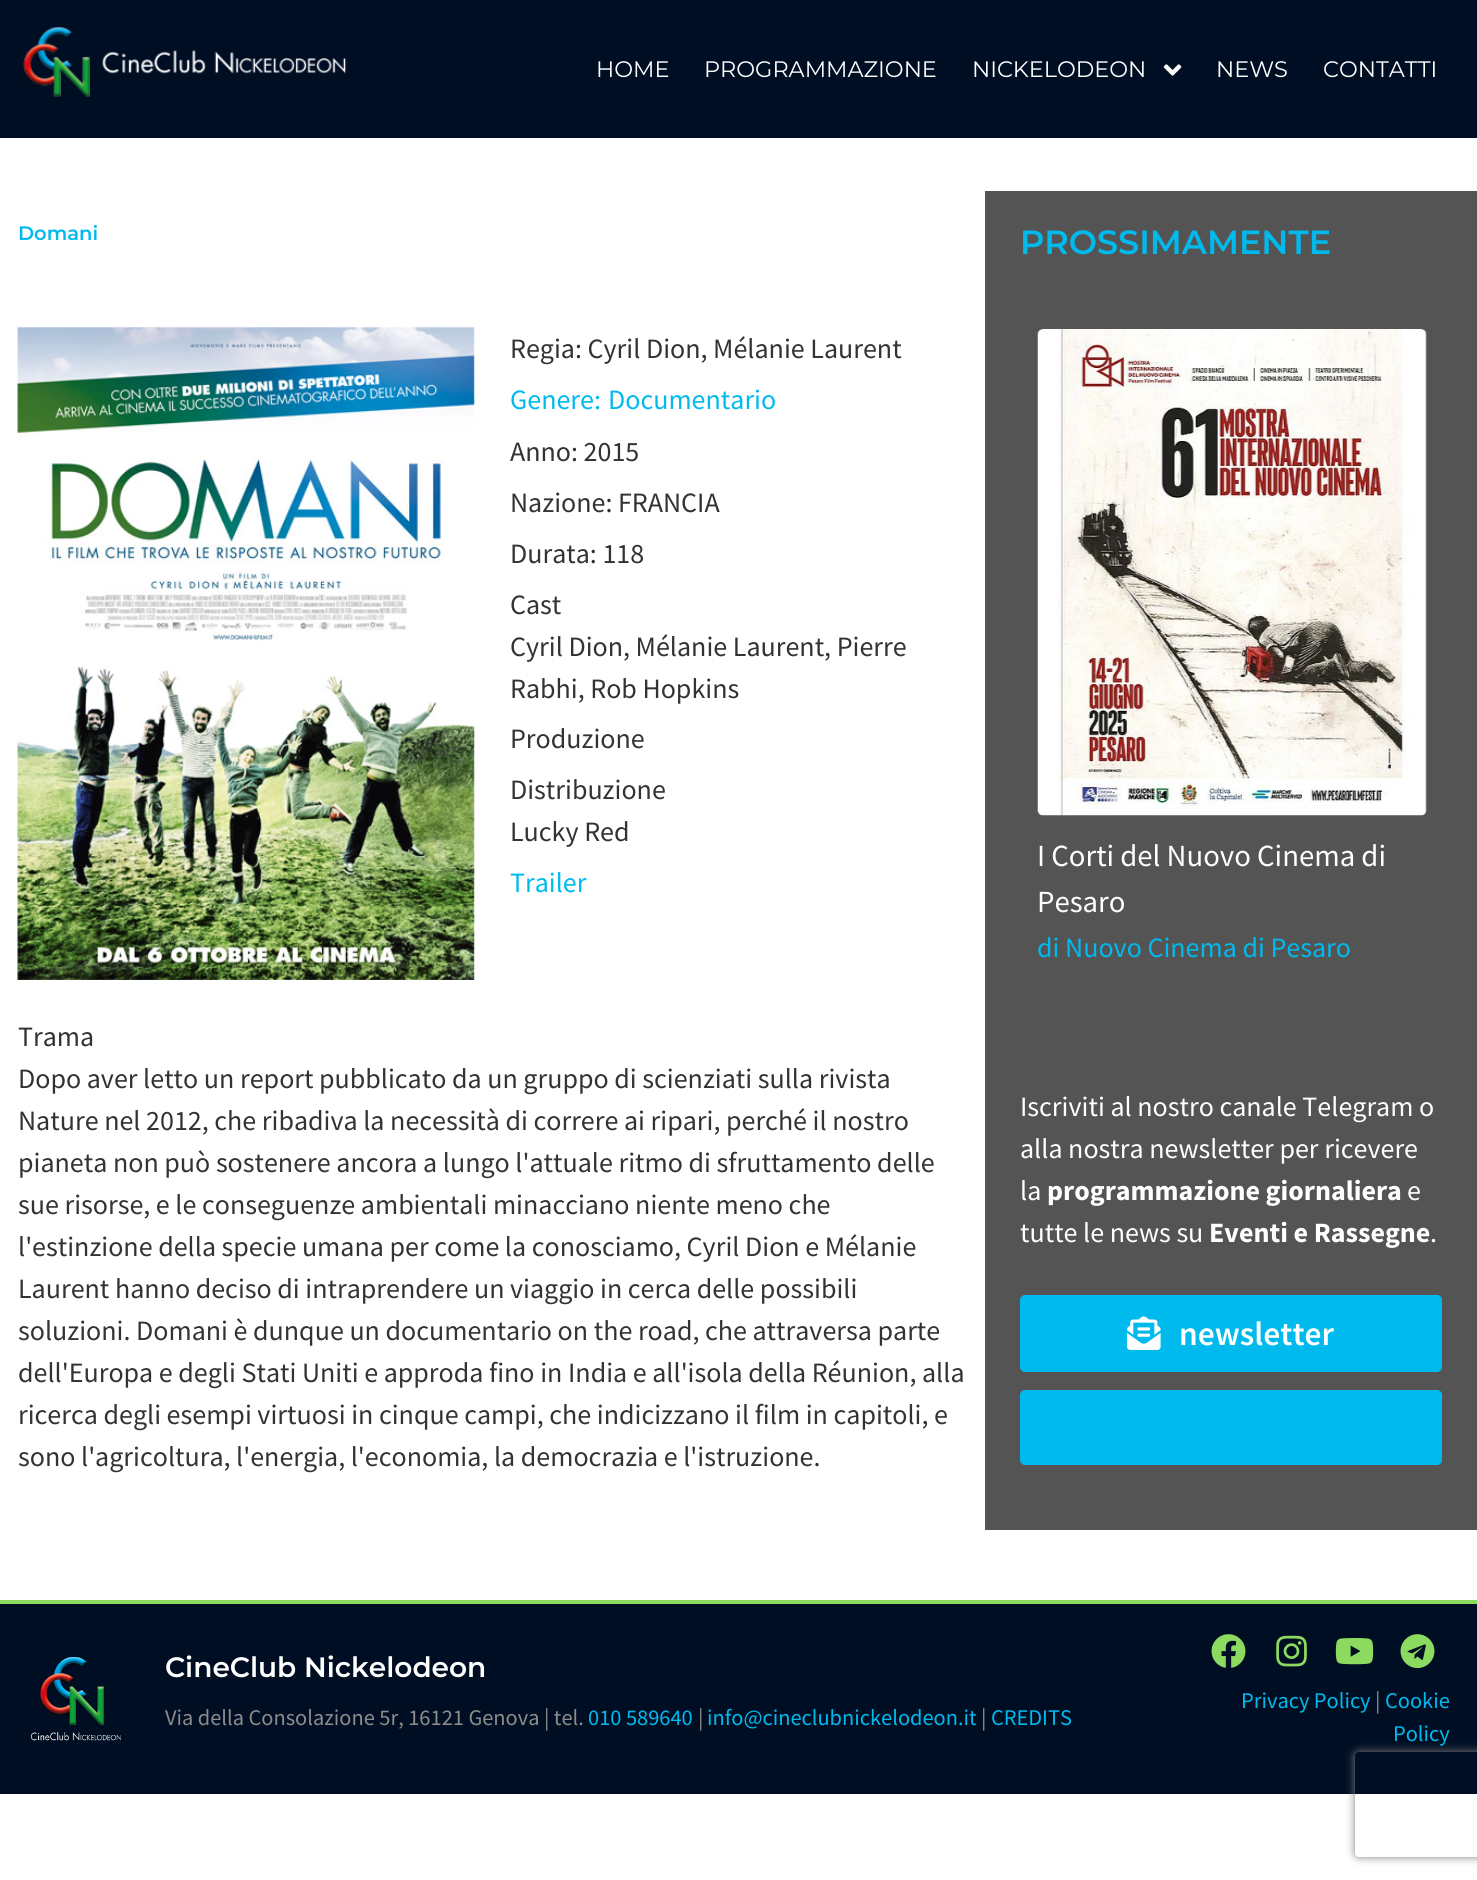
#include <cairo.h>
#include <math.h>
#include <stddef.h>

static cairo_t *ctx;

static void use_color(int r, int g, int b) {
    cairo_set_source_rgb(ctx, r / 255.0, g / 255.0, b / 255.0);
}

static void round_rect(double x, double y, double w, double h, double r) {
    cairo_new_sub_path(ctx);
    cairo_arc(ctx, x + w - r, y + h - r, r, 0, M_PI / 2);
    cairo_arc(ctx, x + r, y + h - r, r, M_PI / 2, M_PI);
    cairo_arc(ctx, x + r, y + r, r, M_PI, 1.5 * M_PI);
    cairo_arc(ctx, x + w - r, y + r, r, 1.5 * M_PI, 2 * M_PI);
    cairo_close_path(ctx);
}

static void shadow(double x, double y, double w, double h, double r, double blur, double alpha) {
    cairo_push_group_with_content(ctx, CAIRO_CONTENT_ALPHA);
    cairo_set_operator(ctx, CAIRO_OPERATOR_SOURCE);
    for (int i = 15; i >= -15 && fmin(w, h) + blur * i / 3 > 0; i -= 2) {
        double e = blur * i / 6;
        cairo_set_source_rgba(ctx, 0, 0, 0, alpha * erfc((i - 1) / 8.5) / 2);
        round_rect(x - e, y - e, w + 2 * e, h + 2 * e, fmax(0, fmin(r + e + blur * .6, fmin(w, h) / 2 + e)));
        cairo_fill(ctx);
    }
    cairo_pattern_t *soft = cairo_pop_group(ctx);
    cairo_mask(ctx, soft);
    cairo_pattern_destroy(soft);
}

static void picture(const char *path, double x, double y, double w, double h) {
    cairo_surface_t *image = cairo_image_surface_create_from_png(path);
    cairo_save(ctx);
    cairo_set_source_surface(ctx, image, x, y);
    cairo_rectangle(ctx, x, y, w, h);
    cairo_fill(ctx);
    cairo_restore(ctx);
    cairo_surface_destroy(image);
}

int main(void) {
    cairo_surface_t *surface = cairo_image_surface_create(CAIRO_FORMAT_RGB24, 1477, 1880);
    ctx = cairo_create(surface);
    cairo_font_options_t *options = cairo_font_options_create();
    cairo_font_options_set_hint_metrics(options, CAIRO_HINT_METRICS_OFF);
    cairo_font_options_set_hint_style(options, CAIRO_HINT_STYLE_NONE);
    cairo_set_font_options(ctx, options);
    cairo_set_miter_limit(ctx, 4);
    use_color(255, 255, 255);
    cairo_paint(ctx);
    use_color(0, 14, 36);
    cairo_rectangle(ctx, 0, 0, 1477, 138);
    cairo_fill(ctx);
    picture("img1.png", 23, 27, 324, 70);
    cairo_select_font_face(ctx, "Montserrat", CAIRO_FONT_SLANT_NORMAL, CAIRO_FONT_WEIGHT_NORMAL);
    cairo_set_font_size(ctx, 22.4);
    use_color(255, 255, 255);
    cairo_move_to(ctx, 596, 77);
    cairo_show_text(ctx, "HOME");
    cairo_move_to(ctx, 704, 77);
    cairo_show_text(ctx, "PROGRAMMAZIONE");
    cairo_move_to(ctx, 972, 77);
    cairo_show_text(ctx, "NICKELODEON");
    picture("img2.png", 1163, 64, 19, 12);
    cairo_move_to(ctx, 1216, 77);
    cairo_show_text(ctx, "NEWS");
    cairo_move_to(ctx, 1323, 77);
    cairo_show_text(ctx, "CONTATTI");
    cairo_select_font_face(ctx, "Montserrat SemiBold", CAIRO_FONT_SLANT_NORMAL, CAIRO_FONT_WEIGHT_NORMAL);
    cairo_set_font_size(ctx, 19.5);
    use_color(0, 186, 238);
    cairo_move_to(ctx, 18, 240);
    cairo_show_text(ctx, "Domani");
    picture("img3.png", 17, 327, 458, 653);
    cairo_select_font_face(ctx, "Source Sans Pro", CAIRO_FONT_SLANT_NORMAL, CAIRO_FONT_WEIGHT_NORMAL);
    cairo_set_font_size(ctx, 28);
    use_color(51, 51, 51);
    cairo_move_to(ctx, 510, 358);
    cairo_show_text(ctx, "Regia: Cyril Dion, Mélanie Laurent");
    use_color(0, 186, 238);
    cairo_move_to(ctx, 510, 409);
    cairo_show_text(ctx, "Genere:");
    cairo_move_to(ctx, 608, 409);
    cairo_show_text(ctx, "Documentario");
    use_color(51, 51, 51);
    cairo_move_to(ctx, 510, 461);
    cairo_show_text(ctx, "Anno: 2015");
    cairo_move_to(ctx, 510, 512);
    cairo_show_text(ctx, "Nazione: FRANCIA");
    cairo_move_to(ctx, 510, 563);
    cairo_show_text(ctx, "Durata: 118");
    cairo_move_to(ctx, 510, 614);
    cairo_show_text(ctx, "Cast");
    cairo_move_to(ctx, 510, 656);
    cairo_show_text(ctx, "Cyril Dion, Mélanie Laurent, Pierre");
    cairo_move_to(ctx, 510, 698);
    cairo_show_text(ctx, "Rabhi, Rob Hopkins");
    cairo_move_to(ctx, 510, 748);
    cairo_show_text(ctx, "Produzione");
    cairo_move_to(ctx, 510, 799);
    cairo_show_text(ctx, "Distribuzione");
    cairo_move_to(ctx, 510, 841);
    cairo_show_text(ctx, "Lucky Red");
    use_color(0, 186, 238);
    cairo_move_to(ctx, 510, 892);
    cairo_show_text(ctx, "Trailer");
    use_color(51, 51, 51);
    cairo_move_to(ctx, 18, 1046);
    cairo_show_text(ctx, "Trama");
    cairo_move_to(ctx, 18, 1088);
    cairo_show_text(ctx, "Dopo aver letto un report pubblicato da un gruppo di scienziati sulla rivista");
    cairo_move_to(ctx, 18, 1130);
    cairo_show_text(ctx, "Nature nel 2012, che ribadiva la necessità di correre ai ripari, perché il nostro");
    cairo_move_to(ctx, 18, 1172);
    cairo_show_text(ctx, "pianeta non può sostenere ancora a lungo l'attuale ritmo di sfruttamento delle");
    cairo_move_to(ctx, 18, 1214);
    cairo_show_text(ctx, "sue risorse, e le conseguenze ambientali minacciano niente meno che");
    cairo_move_to(ctx, 18, 1256);
    cairo_show_text(ctx, "l'estinzione della specie umana per come la conosciamo, Cyril Dion e Mélanie");
    cairo_move_to(ctx, 18, 1298);
    cairo_show_text(ctx, "Laurent hanno deciso di intraprendere un viaggio in cerca delle possibili");
    cairo_move_to(ctx, 18, 1340);
    cairo_show_text(ctx, "soluzioni. Domani è dunque un documentario on the road, che attraversa parte");
    cairo_move_to(ctx, 18, 1382);
    cairo_show_text(ctx, "dell'Europa e degli Stati Uniti e approda fino in India e all'isola della Réunion, alla");
    cairo_move_to(ctx, 18, 1424);
    cairo_show_text(ctx, "ricerca degli esempi virtuosi in cinque campi, che indicizzano il film in capitoli, e");
    cairo_move_to(ctx, 18, 1466);
    cairo_show_text(ctx, "sono l'agricoltura, l'energia, l'economia, la democrazia e l'istruzione.");
    use_color(84, 84, 84);
    cairo_rectangle(ctx, 985, 191, 492, 1339);
    cairo_fill(ctx);
    cairo_select_font_face(ctx, "Montserrat SemiBold", CAIRO_FONT_SLANT_NORMAL, CAIRO_FONT_WEIGHT_NORMAL);
    cairo_set_font_size(ctx, 33.5);
    use_color(0, 186, 238);
    cairo_move_to(ctx, 1020, 254);
    cairo_show_text(ctx, "PROSSIMAMENTE");
    picture("img4.png", 1037, 329, 390, 487);
    cairo_select_font_face(ctx, "Source Sans Pro", CAIRO_FONT_SLANT_NORMAL, CAIRO_FONT_WEIGHT_NORMAL);
    cairo_set_font_size(ctx, 30.75);
    use_color(255, 255, 255);
    cairo_move_to(ctx, 1037, 866);
    cairo_show_text(ctx, "I Corti del Nuovo Cinema di");
    cairo_move_to(ctx, 1037, 912);
    cairo_show_text(ctx, "Pesaro");
    cairo_set_font_size(ctx, 28);
    use_color(0, 186, 238);
    cairo_move_to(ctx, 1037, 957);
    cairo_show_text(ctx, "di Nuovo Cinema di Pesaro");
    use_color(255, 255, 255);
    cairo_move_to(ctx, 1020, 1116);
    cairo_show_text(ctx, "Iscriviti al nostro canale Telegram o");
    cairo_move_to(ctx, 1020, 1158);
    cairo_show_text(ctx, "alla nostra newsletter per ricevere");
    cairo_move_to(ctx, 1020, 1200);
    cairo_show_text(ctx, "la");
    cairo_select_font_face(ctx, "Source Sans Pro", CAIRO_FONT_SLANT_NORMAL, CAIRO_FONT_WEIGHT_BOLD);
    cairo_move_to(ctx, 1047, 1200);
    cairo_show_text(ctx, "programmazione giornaliera");
    cairo_select_font_face(ctx, "Source Sans Pro", CAIRO_FONT_SLANT_NORMAL, CAIRO_FONT_WEIGHT_NORMAL);
    cairo_move_to(ctx, 1407, 1200);
    cairo_show_text(ctx, "e");
    cairo_move_to(ctx, 1020, 1242);
    cairo_show_text(ctx, "tutte le news su");
    cairo_select_font_face(ctx, "Source Sans Pro", CAIRO_FONT_SLANT_NORMAL, CAIRO_FONT_WEIGHT_BOLD);
    cairo_move_to(ctx, 1209, 1242);
    cairo_show_text(ctx, "Eventi e Rassegne");
    cairo_select_font_face(ctx, "Source Sans Pro", CAIRO_FONT_SLANT_NORMAL, CAIRO_FONT_WEIGHT_NORMAL);
    cairo_move_to(ctx, 1430, 1242);
    cairo_show_text(ctx, ".");
    use_color(0, 186, 238);
    round_rect(1020, 1295, 422, 77, 5);
    cairo_fill(ctx);
    picture("img5.png", 1127, 1316, 34, 34);
    cairo_select_font_face(ctx, "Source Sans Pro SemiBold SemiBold", CAIRO_FONT_SLANT_NORMAL, CAIRO_FONT_WEIGHT_NORMAL);
    cairo_set_font_size(ctx, 33.5);
    use_color(255, 255, 255);
    cairo_move_to(ctx, 1179, 1345);
    cairo_show_text(ctx, "newsletter");
    use_color(0, 186, 238);
    round_rect(1020, 1390, 422, 75, 5);
    cairo_fill(ctx);
    use_color(0, 14, 36);
    cairo_rectangle(ctx, 0, 1604, 1477, 190);
    cairo_fill(ctx);
    use_color(140, 218, 96);
    cairo_rectangle(ctx, 0, 1600, 1477, 4);
    cairo_fill(ctx);
    picture("img6.png", 30, 1657, 91, 84);
    cairo_select_font_face(ctx, "Montserrat SemiBold", CAIRO_FONT_SLANT_NORMAL, CAIRO_FONT_WEIGHT_NORMAL);
    cairo_set_font_size(ctx, 28);
    use_color(255, 255, 255);
    cairo_move_to(ctx, 165, 1677);
    cairo_show_text(ctx, "CineClub Nickelodeon");
    cairo_select_font_face(ctx, "Source Sans Pro", CAIRO_FONT_SLANT_NORMAL, CAIRO_FONT_WEIGHT_NORMAL);
    cairo_set_font_size(ctx, 22.4);
    use_color(140, 140, 140);
    cairo_move_to(ctx, 165, 1725);
    cairo_show_text(ctx, "Via della Consolazione 5r, 16121 Genova | tel.");
    use_color(0, 186, 238);
    cairo_move_to(ctx, 588, 1725);
    cairo_show_text(ctx, "010 589640");
    use_color(140, 140, 140);
    cairo_move_to(ctx, 698, 1725);
    cairo_show_text(ctx, "|");
    use_color(0, 186, 238);
    cairo_move_to(ctx, 707, 1725);
    cairo_show_text(ctx, "info@cineclubnickelodeon.it");
    use_color(140, 140, 140);
    cairo_move_to(ctx, 981, 1725);
    cairo_show_text(ctx, "|");
    use_color(0, 186, 238);
    cairo_move_to(ctx, 991, 1725);
    cairo_show_text(ctx, "CREDITS");
    picture("img7.png", 1211, 1634, 35, 34);
    picture("img8.png", 1276, 1635, 31, 32);
    picture("img9.png", 1335, 1638, 39, 27);
    picture("img10.png", 1400, 1634, 35, 35);
    cairo_move_to(ctx, 1241, 1708);
    cairo_show_text(ctx, "Privacy Policy");
    use_color(140, 140, 140);
    cairo_move_to(ctx, 1375, 1708);
    cairo_show_text(ctx, "|");
    use_color(0, 186, 238);
    cairo_move_to(ctx, 1385, 1708);
    cairo_show_text(ctx, "Cookie");
    cairo_move_to(ctx, 1393, 1741);
    cairo_show_text(ctx, "Policy");
    cairo_save(ctx);
    cairo_set_fill_rule(ctx, CAIRO_FILL_RULE_EVEN_ODD);
    cairo_new_path(ctx);
    cairo_move_to(ctx, 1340, 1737);
    cairo_line_to(ctx, 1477, 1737);
    cairo_line_to(ctx, 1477, 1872);
    cairo_line_to(ctx, 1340, 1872);
    cairo_close_path(ctx);
    cairo_move_to(ctx, 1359, 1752);
    cairo_line_to(ctx, 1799, 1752);
    cairo_curve_to(ctx, 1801, 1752, 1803, 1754, 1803, 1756);
    cairo_line_to(ctx, 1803, 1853);
    cairo_curve_to(ctx, 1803, 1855, 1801, 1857, 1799, 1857);
    cairo_line_to(ctx, 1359, 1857);
    cairo_curve_to(ctx, 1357, 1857, 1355, 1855, 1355, 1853);
    cairo_line_to(ctx, 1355, 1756);
    cairo_curve_to(ctx, 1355, 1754, 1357, 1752, 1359, 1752);
    cairo_close_path(ctx);
    cairo_clip(ctx);
    use_color(128, 128, 128);
    shadow(1355, 1752, 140, 105, 4, 4.5, 1);
    cairo_restore(ctx);
    cairo_surface_write_to_png(surface, "result.png");
    cairo_font_options_destroy(options);
    cairo_destroy(ctx);
    cairo_surface_destroy(surface);
    return 0;
}
